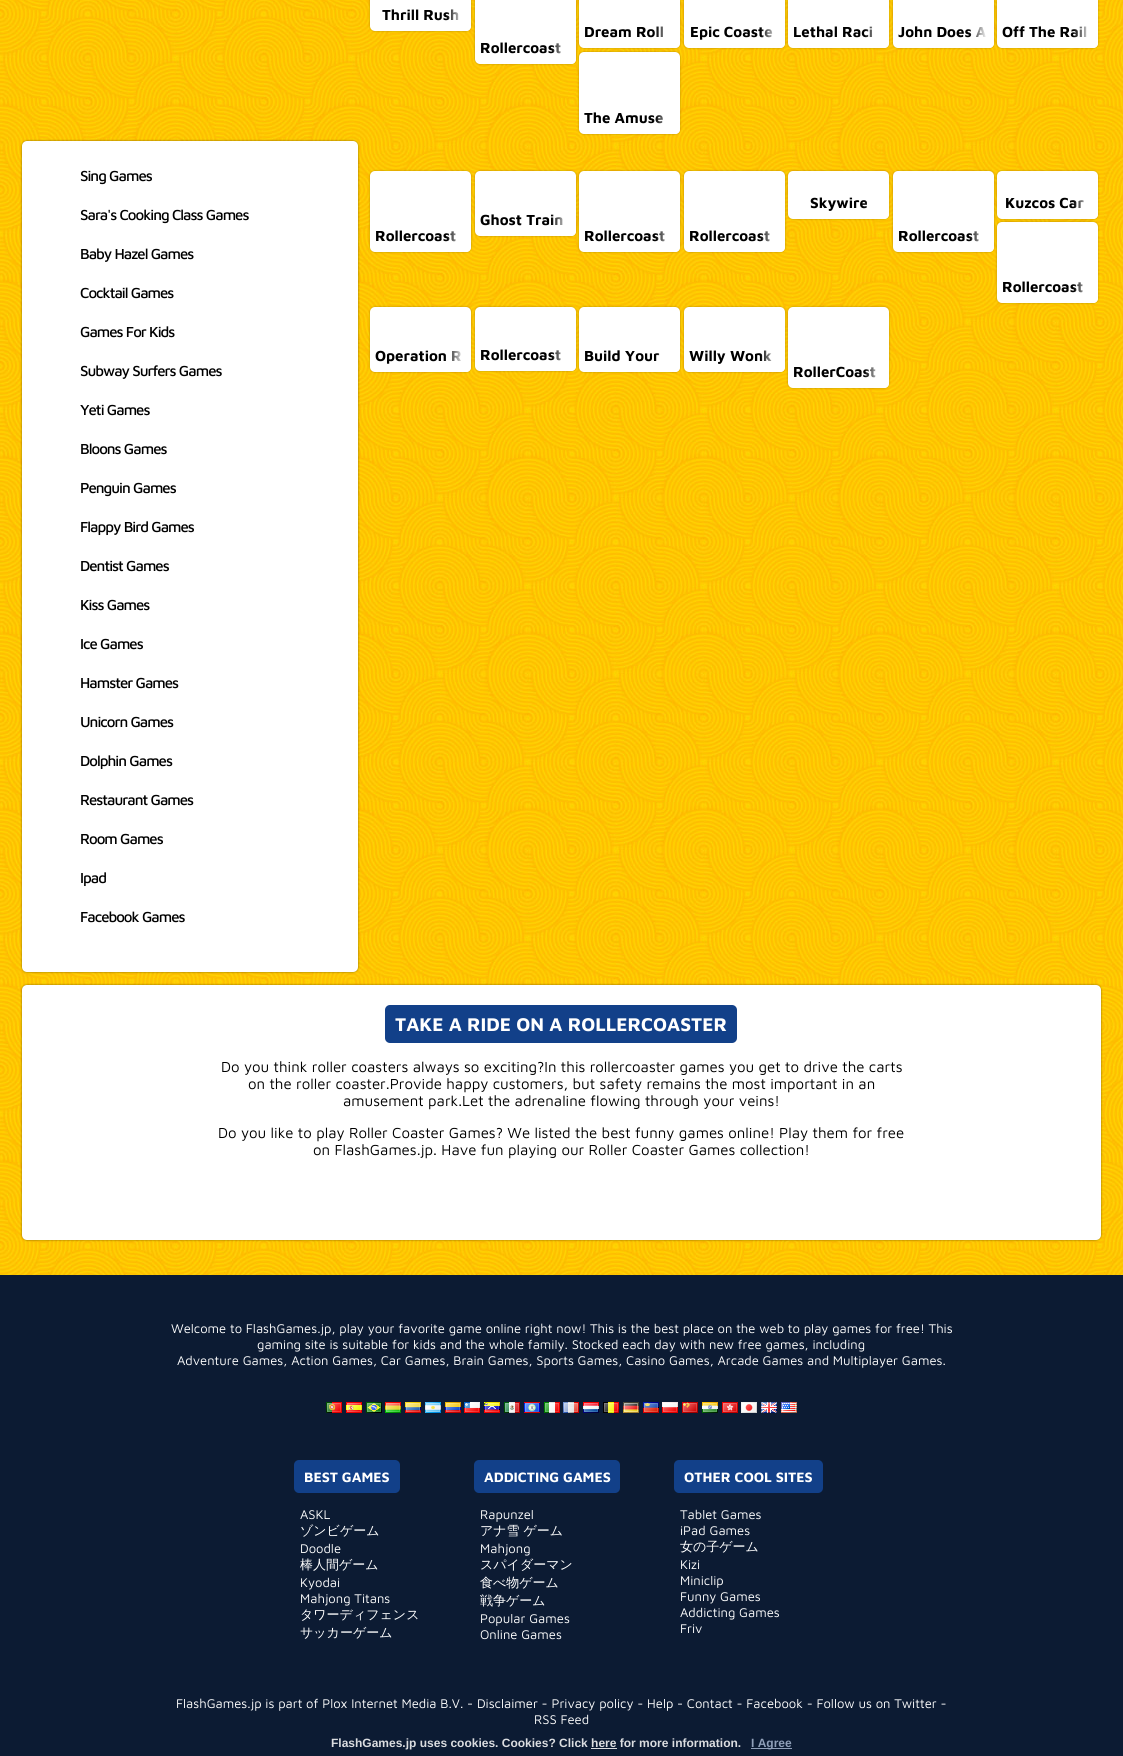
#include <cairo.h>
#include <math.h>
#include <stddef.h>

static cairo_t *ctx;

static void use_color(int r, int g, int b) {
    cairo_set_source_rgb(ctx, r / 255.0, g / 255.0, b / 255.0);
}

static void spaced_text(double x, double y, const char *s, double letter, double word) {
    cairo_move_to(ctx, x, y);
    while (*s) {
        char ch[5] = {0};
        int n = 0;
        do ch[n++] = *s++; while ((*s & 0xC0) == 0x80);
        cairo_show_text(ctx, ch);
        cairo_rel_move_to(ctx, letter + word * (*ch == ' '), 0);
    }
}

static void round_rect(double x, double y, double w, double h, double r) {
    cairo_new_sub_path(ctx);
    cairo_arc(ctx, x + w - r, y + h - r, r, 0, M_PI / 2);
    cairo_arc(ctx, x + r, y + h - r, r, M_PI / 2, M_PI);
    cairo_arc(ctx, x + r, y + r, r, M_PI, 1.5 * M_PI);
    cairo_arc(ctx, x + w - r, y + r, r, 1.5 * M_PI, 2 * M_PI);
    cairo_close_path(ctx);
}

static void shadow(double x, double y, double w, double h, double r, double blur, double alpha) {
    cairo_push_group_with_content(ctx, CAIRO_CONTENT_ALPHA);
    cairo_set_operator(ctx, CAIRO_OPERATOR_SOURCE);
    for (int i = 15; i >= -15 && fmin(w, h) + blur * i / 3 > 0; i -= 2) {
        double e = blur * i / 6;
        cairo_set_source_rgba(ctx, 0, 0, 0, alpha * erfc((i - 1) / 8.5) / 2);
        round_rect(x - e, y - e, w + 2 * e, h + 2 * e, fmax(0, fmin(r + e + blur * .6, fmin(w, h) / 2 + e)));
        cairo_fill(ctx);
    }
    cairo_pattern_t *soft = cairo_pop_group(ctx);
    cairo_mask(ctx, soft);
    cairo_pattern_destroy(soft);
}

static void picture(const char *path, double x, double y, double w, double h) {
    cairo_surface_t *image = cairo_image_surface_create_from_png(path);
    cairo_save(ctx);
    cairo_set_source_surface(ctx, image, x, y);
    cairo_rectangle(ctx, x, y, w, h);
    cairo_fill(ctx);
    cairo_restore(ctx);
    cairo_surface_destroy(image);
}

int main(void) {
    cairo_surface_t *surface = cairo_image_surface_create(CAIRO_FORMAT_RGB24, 1123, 1756);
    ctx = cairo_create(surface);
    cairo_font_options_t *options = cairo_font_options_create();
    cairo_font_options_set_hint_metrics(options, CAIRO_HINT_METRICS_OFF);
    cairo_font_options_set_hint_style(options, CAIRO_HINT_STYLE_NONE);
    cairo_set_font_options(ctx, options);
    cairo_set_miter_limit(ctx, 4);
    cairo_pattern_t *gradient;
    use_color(255, 255, 255);
    cairo_paint(ctx);
    picture("img1.png", 0, 0, 1123, 1275);
    use_color(0, 0, 0);
    shadow(22, 141, 336, 831, 5, 1, 0.48);
    use_color(255, 255, 255);
    round_rect(22, 141, 336, 831, 5);
    cairo_fill(ctx);
    cairo_select_font_face(ctx, "Maven Pro Medium", CAIRO_FONT_SLANT_NORMAL, CAIRO_FONT_WEIGHT_NORMAL);
    cairo_set_font_size(ctx, 15);
    use_color(0, 0, 0);
    spaced_text(80, 181, "Sing Games", -1, 0);
    spaced_text(80, 220, "Sara's Cooking Class Games", -1, 0);
    spaced_text(80, 259, "Baby Hazel Games", -1, 0);
    spaced_text(80, 298, "Cocktail Games", -1, 0);
    spaced_text(80, 337, "Games For Kids", -1, 0);
    spaced_text(80, 376, "Subway Surfers Games", -1, 0);
    spaced_text(80, 415, "Yeti Games", -1, 0);
    spaced_text(80, 454, "Bloons Games", -1, 0);
    spaced_text(80, 493, "Penguin Games", -1, 0);
    spaced_text(80, 532, "Flappy Bird Games", -1, 0);
    spaced_text(80, 571, "Dentist Games", -1, 0);
    spaced_text(80, 610, "Kiss Games", -1, 0);
    spaced_text(80, 649, "Ice Games", -1, 0);
    spaced_text(80, 688, "Hamster Games", -1, 0);
    spaced_text(80, 727, "Unicorn Games", -1, 0);
    spaced_text(80, 766, "Dolphin Games", -1, 0);
    spaced_text(80, 805, "Restaurant Games", -1, 0);
    spaced_text(80, 844, "Room Games", -1, 0);
    spaced_text(80, 883, "Ipad", -1, 0);
    spaced_text(80, 922, "Facebook Games", -1, 0);
    use_color(0, 0, 0);
    shadow(370, -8, 101, 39, 5, 1, 0.28);
    use_color(255, 255, 255);
    round_rect(370, -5, 101, 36, 5);
    cairo_fill(ctx);
    cairo_select_font_face(ctx, "Maven Pro", CAIRO_FONT_SLANT_NORMAL, CAIRO_FONT_WEIGHT_BOLD);
    use_color(0, 0, 0);
    cairo_move_to(ctx, 382, 20);
    cairo_show_text(ctx, "Thrill Rush");
    gradient = cairo_pattern_create_linear(446, 16, 471, 16);
    cairo_pattern_add_color_stop_rgba(gradient, 0, 1, 1, 1, 0);
    cairo_pattern_add_color_stop_rgba(gradient, 0.01, 1, 1, 1, 0);
    cairo_pattern_add_color_stop_rgba(gradient, 0.71, 1, 1, 1, 1);
    cairo_set_source(ctx, gradient);
    cairo_pattern_destroy(gradient);
    cairo_new_path(ctx);
    cairo_move_to(ctx, 446, 1);
    cairo_line_to(ctx, 471, 1);
    cairo_line_to(ctx, 471, 26);
    cairo_curve_to(ctx, 471, 29, 469, 31, 466, 31);
    cairo_line_to(ctx, 446, 31);
    cairo_close_path(ctx);
    cairo_fill(ctx);
    use_color(0, 0, 0);
    shadow(475, -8, 101, 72, 5, 1, 0.28);
    use_color(255, 255, 255);
    round_rect(475, -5, 101, 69, 5);
    cairo_fill(ctx);
    use_color(0, 0, 0);
    cairo_move_to(ctx, 480, 53);
    cairo_show_text(ctx, "Rollercoast");
    gradient = cairo_pattern_create_linear(551, 49, 576, 49);
    cairo_pattern_add_color_stop_rgba(gradient, 0, 1, 1, 1, 0);
    cairo_pattern_add_color_stop_rgba(gradient, 0.01, 1, 1, 1, 0);
    cairo_pattern_add_color_stop_rgba(gradient, 0.71, 1, 1, 1, 1);
    cairo_set_source(ctx, gradient);
    cairo_pattern_destroy(gradient);
    cairo_new_path(ctx);
    cairo_move_to(ctx, 551, 34);
    cairo_line_to(ctx, 576, 34);
    cairo_line_to(ctx, 576, 59);
    cairo_curve_to(ctx, 576, 62, 574, 64, 571, 64);
    cairo_line_to(ctx, 551, 64);
    cairo_close_path(ctx);
    cairo_fill(ctx);
    use_color(0, 0, 0);
    shadow(579, -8, 101, 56, 5, 1, 0.28);
    use_color(255, 255, 255);
    round_rect(579, -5, 101, 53, 5);
    cairo_fill(ctx);
    use_color(0, 0, 0);
    cairo_move_to(ctx, 584, 37);
    cairo_show_text(ctx, "Dream Roll");
    gradient = cairo_pattern_create_linear(655, 33, 680, 33);
    cairo_pattern_add_color_stop_rgba(gradient, 0, 1, 1, 1, 0);
    cairo_pattern_add_color_stop_rgba(gradient, 0.01, 1, 1, 1, 0);
    cairo_pattern_add_color_stop_rgba(gradient, 0.71, 1, 1, 1, 1);
    cairo_set_source(ctx, gradient);
    cairo_pattern_destroy(gradient);
    cairo_new_path(ctx);
    cairo_move_to(ctx, 655, 18);
    cairo_line_to(ctx, 680, 18);
    cairo_line_to(ctx, 680, 43);
    cairo_curve_to(ctx, 680, 46, 678, 48, 675, 48);
    cairo_line_to(ctx, 655, 48);
    cairo_close_path(ctx);
    cairo_fill(ctx);
    use_color(0, 0, 0);
    shadow(684, -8, 101, 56, 5, 1, 0.28);
    use_color(255, 255, 255);
    round_rect(684, -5, 101, 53, 5);
    cairo_fill(ctx);
    use_color(0, 0, 0);
    cairo_move_to(ctx, 690, 37);
    cairo_show_text(ctx, "Epic Coaste");
    gradient = cairo_pattern_create_linear(760, 33, 785, 33);
    cairo_pattern_add_color_stop_rgba(gradient, 0, 1, 1, 1, 0);
    cairo_pattern_add_color_stop_rgba(gradient, 0.01, 1, 1, 1, 0);
    cairo_pattern_add_color_stop_rgba(gradient, 0.71, 1, 1, 1, 1);
    cairo_set_source(ctx, gradient);
    cairo_pattern_destroy(gradient);
    cairo_new_path(ctx);
    cairo_move_to(ctx, 760, 18);
    cairo_line_to(ctx, 785, 18);
    cairo_line_to(ctx, 785, 43);
    cairo_curve_to(ctx, 785, 46, 783, 48, 780, 48);
    cairo_line_to(ctx, 760, 48);
    cairo_close_path(ctx);
    cairo_fill(ctx);
    use_color(0, 0, 0);
    shadow(788, -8, 101, 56, 5, 1, 0.28);
    use_color(255, 255, 255);
    round_rect(788, -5, 101, 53, 5);
    cairo_fill(ctx);
    use_color(0, 0, 0);
    cairo_move_to(ctx, 793, 37);
    cairo_show_text(ctx, "Lethal Raci");
    gradient = cairo_pattern_create_linear(864, 33, 889, 33);
    cairo_pattern_add_color_stop_rgba(gradient, 0, 1, 1, 1, 0);
    cairo_pattern_add_color_stop_rgba(gradient, 0.01, 1, 1, 1, 0);
    cairo_pattern_add_color_stop_rgba(gradient, 0.71, 1, 1, 1, 1);
    cairo_set_source(ctx, gradient);
    cairo_pattern_destroy(gradient);
    cairo_new_path(ctx);
    cairo_move_to(ctx, 864, 18);
    cairo_line_to(ctx, 889, 18);
    cairo_line_to(ctx, 889, 43);
    cairo_curve_to(ctx, 889, 46, 887, 48, 884, 48);
    cairo_line_to(ctx, 864, 48);
    cairo_close_path(ctx);
    cairo_fill(ctx);
    use_color(0, 0, 0);
    shadow(893, -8, 101, 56, 5, 1, 0.28);
    use_color(255, 255, 255);
    round_rect(893, -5, 101, 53, 5);
    cairo_fill(ctx);
    use_color(0, 0, 0);
    cairo_move_to(ctx, 898, 37);
    cairo_show_text(ctx, "John Does A");
    gradient = cairo_pattern_create_linear(969, 33, 994, 33);
    cairo_pattern_add_color_stop_rgba(gradient, 0, 1, 1, 1, 0);
    cairo_pattern_add_color_stop_rgba(gradient, 0.01, 1, 1, 1, 0);
    cairo_pattern_add_color_stop_rgba(gradient, 0.71, 1, 1, 1, 1);
    cairo_set_source(ctx, gradient);
    cairo_pattern_destroy(gradient);
    cairo_new_path(ctx);
    cairo_move_to(ctx, 969, 18);
    cairo_line_to(ctx, 994, 18);
    cairo_line_to(ctx, 994, 43);
    cairo_curve_to(ctx, 994, 46, 992, 48, 989, 48);
    cairo_line_to(ctx, 969, 48);
    cairo_close_path(ctx);
    cairo_fill(ctx);
    use_color(0, 0, 0);
    shadow(997, -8, 101, 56, 5, 1, 0.28);
    use_color(255, 255, 255);
    round_rect(997, -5, 101, 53, 5);
    cairo_fill(ctx);
    use_color(0, 0, 0);
    cairo_move_to(ctx, 1002, 37);
    cairo_show_text(ctx, "Off The Rail");
    gradient = cairo_pattern_create_linear(1073, 33, 1098, 33);
    cairo_pattern_add_color_stop_rgba(gradient, 0, 1, 1, 1, 0);
    cairo_pattern_add_color_stop_rgba(gradient, 0.01, 1, 1, 1, 0);
    cairo_pattern_add_color_stop_rgba(gradient, 0.71, 1, 1, 1, 1);
    cairo_set_source(ctx, gradient);
    cairo_pattern_destroy(gradient);
    cairo_new_path(ctx);
    cairo_move_to(ctx, 1073, 18);
    cairo_line_to(ctx, 1098, 18);
    cairo_line_to(ctx, 1098, 43);
    cairo_curve_to(ctx, 1098, 46, 1096, 48, 1093, 48);
    cairo_line_to(ctx, 1073, 48);
    cairo_close_path(ctx);
    cairo_fill(ctx);
    use_color(0, 0, 0);
    shadow(579, 52, 101, 82, 5, 1, 0.28);
    use_color(255, 255, 255);
    round_rect(579, 52, 101, 82, 5);
    cairo_fill(ctx);
    use_color(0, 0, 0);
    cairo_move_to(ctx, 584, 123);
    cairo_show_text(ctx, "The Amuse");
    gradient = cairo_pattern_create_linear(655, 119, 680, 119);
    cairo_pattern_add_color_stop_rgba(gradient, 0, 1, 1, 1, 0);
    cairo_pattern_add_color_stop_rgba(gradient, 0.01, 1, 1, 1, 0);
    cairo_pattern_add_color_stop_rgba(gradient, 0.71, 1, 1, 1, 1);
    cairo_set_source(ctx, gradient);
    cairo_pattern_destroy(gradient);
    cairo_new_path(ctx);
    cairo_move_to(ctx, 655, 104);
    cairo_line_to(ctx, 680, 104);
    cairo_line_to(ctx, 680, 129);
    cairo_curve_to(ctx, 680, 132, 678, 134, 675, 134);
    cairo_line_to(ctx, 655, 134);
    cairo_close_path(ctx);
    cairo_fill(ctx);
    use_color(0, 0, 0);
    shadow(684, 171, 101, 81, 5, 1, 0.28);
    use_color(255, 255, 255);
    round_rect(684, 171, 101, 81, 5);
    cairo_fill(ctx);
    use_color(0, 0, 0);
    cairo_move_to(ctx, 689, 241);
    cairo_show_text(ctx, "Rollercoast");
    gradient = cairo_pattern_create_linear(760, 237, 785, 237);
    cairo_pattern_add_color_stop_rgba(gradient, 0, 1, 1, 1, 0);
    cairo_pattern_add_color_stop_rgba(gradient, 0.01, 1, 1, 1, 0);
    cairo_pattern_add_color_stop_rgba(gradient, 0.71, 1, 1, 1, 1);
    cairo_set_source(ctx, gradient);
    cairo_pattern_destroy(gradient);
    cairo_new_path(ctx);
    cairo_move_to(ctx, 760, 222);
    cairo_line_to(ctx, 785, 222);
    cairo_line_to(ctx, 785, 247);
    cairo_curve_to(ctx, 785, 250, 783, 252, 780, 252);
    cairo_line_to(ctx, 760, 252);
    cairo_close_path(ctx);
    cairo_fill(ctx);
    use_color(0, 0, 0);
    shadow(788, 171, 101, 48, 5, 1, 0.28);
    use_color(255, 255, 255);
    round_rect(788, 171, 101, 48, 5);
    cairo_fill(ctx);
    use_color(0, 0, 0);
    cairo_move_to(ctx, 810, 208);
    cairo_show_text(ctx, "Skywire");
    gradient = cairo_pattern_create_linear(864, 204, 889, 204);
    cairo_pattern_add_color_stop_rgba(gradient, 0, 1, 1, 1, 0);
    cairo_pattern_add_color_stop_rgba(gradient, 0.01, 1, 1, 1, 0);
    cairo_pattern_add_color_stop_rgba(gradient, 0.71, 1, 1, 1, 1);
    cairo_set_source(ctx, gradient);
    cairo_pattern_destroy(gradient);
    cairo_new_path(ctx);
    cairo_move_to(ctx, 864, 189);
    cairo_line_to(ctx, 889, 189);
    cairo_line_to(ctx, 889, 214);
    cairo_curve_to(ctx, 889, 217, 887, 219, 884, 219);
    cairo_line_to(ctx, 864, 219);
    cairo_close_path(ctx);
    cairo_fill(ctx);
    use_color(0, 0, 0);
    shadow(893, 171, 101, 81, 5, 1, 0.28);
    use_color(255, 255, 255);
    round_rect(893, 171, 101, 81, 5);
    cairo_fill(ctx);
    use_color(0, 0, 0);
    cairo_move_to(ctx, 898, 241);
    cairo_show_text(ctx, "Rollercoast");
    gradient = cairo_pattern_create_linear(969, 237, 994, 237);
    cairo_pattern_add_color_stop_rgba(gradient, 0, 1, 1, 1, 0);
    cairo_pattern_add_color_stop_rgba(gradient, 0.01, 1, 1, 1, 0);
    cairo_pattern_add_color_stop_rgba(gradient, 0.71, 1, 1, 1, 1);
    cairo_set_source(ctx, gradient);
    cairo_pattern_destroy(gradient);
    cairo_new_path(ctx);
    cairo_move_to(ctx, 969, 222);
    cairo_line_to(ctx, 994, 222);
    cairo_line_to(ctx, 994, 247);
    cairo_curve_to(ctx, 994, 250, 992, 252, 989, 252);
    cairo_line_to(ctx, 969, 252);
    cairo_close_path(ctx);
    cairo_fill(ctx);
    use_color(0, 0, 0);
    shadow(997, 171, 101, 48, 5, 1, 0.28);
    use_color(255, 255, 255);
    round_rect(997, 171, 101, 48, 5);
    cairo_fill(ctx);
    use_color(0, 0, 0);
    cairo_move_to(ctx, 1005, 208);
    cairo_show_text(ctx, "Kuzcos Car");
    gradient = cairo_pattern_create_linear(1073, 204, 1098, 204);
    cairo_pattern_add_color_stop_rgba(gradient, 0, 1, 1, 1, 0);
    cairo_pattern_add_color_stop_rgba(gradient, 0.01, 1, 1, 1, 0);
    cairo_pattern_add_color_stop_rgba(gradient, 0.71, 1, 1, 1, 1);
    cairo_set_source(ctx, gradient);
    cairo_pattern_destroy(gradient);
    cairo_new_path(ctx);
    cairo_move_to(ctx, 1073, 189);
    cairo_line_to(ctx, 1098, 189);
    cairo_line_to(ctx, 1098, 214);
    cairo_curve_to(ctx, 1098, 217, 1096, 219, 1093, 219);
    cairo_line_to(ctx, 1073, 219);
    cairo_close_path(ctx);
    cairo_fill(ctx);
    use_color(0, 0, 0);
    shadow(475, 171, 101, 65, 5, 1, 0.28);
    use_color(255, 255, 255);
    round_rect(475, 171, 101, 65, 5);
    cairo_fill(ctx);
    use_color(0, 0, 0);
    cairo_move_to(ctx, 480, 225);
    cairo_show_text(ctx, "Ghost Train");
    gradient = cairo_pattern_create_linear(551, 221, 576, 221);
    cairo_pattern_add_color_stop_rgba(gradient, 0, 1, 1, 1, 0);
    cairo_pattern_add_color_stop_rgba(gradient, 0.01, 1, 1, 1, 0);
    cairo_pattern_add_color_stop_rgba(gradient, 0.71, 1, 1, 1, 1);
    cairo_set_source(ctx, gradient);
    cairo_pattern_destroy(gradient);
    cairo_new_path(ctx);
    cairo_move_to(ctx, 551, 206);
    cairo_line_to(ctx, 576, 206);
    cairo_line_to(ctx, 576, 231);
    cairo_curve_to(ctx, 576, 234, 574, 236, 571, 236);
    cairo_line_to(ctx, 551, 236);
    cairo_close_path(ctx);
    cairo_fill(ctx);
    use_color(0, 0, 0);
    shadow(370, 171, 101, 81, 5, 1, 0.28);
    use_color(255, 255, 255);
    round_rect(370, 171, 101, 81, 5);
    cairo_fill(ctx);
    use_color(0, 0, 0);
    cairo_move_to(ctx, 375, 241);
    cairo_show_text(ctx, "Rollercoast");
    gradient = cairo_pattern_create_linear(446, 237, 471, 237);
    cairo_pattern_add_color_stop_rgba(gradient, 0, 1, 1, 1, 0);
    cairo_pattern_add_color_stop_rgba(gradient, 0.01, 1, 1, 1, 0);
    cairo_pattern_add_color_stop_rgba(gradient, 0.71, 1, 1, 1, 1);
    cairo_set_source(ctx, gradient);
    cairo_pattern_destroy(gradient);
    cairo_new_path(ctx);
    cairo_move_to(ctx, 446, 222);
    cairo_line_to(ctx, 471, 222);
    cairo_line_to(ctx, 471, 247);
    cairo_curve_to(ctx, 471, 250, 469, 252, 466, 252);
    cairo_line_to(ctx, 446, 252);
    cairo_close_path(ctx);
    cairo_fill(ctx);
    use_color(0, 0, 0);
    shadow(579, 171, 101, 81, 5, 1, 0.28);
    use_color(255, 255, 255);
    round_rect(579, 171, 101, 81, 5);
    cairo_fill(ctx);
    use_color(0, 0, 0);
    cairo_move_to(ctx, 584, 241);
    cairo_show_text(ctx, "Rollercoast");
    gradient = cairo_pattern_create_linear(655, 237, 680, 237);
    cairo_pattern_add_color_stop_rgba(gradient, 0, 1, 1, 1, 0);
    cairo_pattern_add_color_stop_rgba(gradient, 0.01, 1, 1, 1, 0);
    cairo_pattern_add_color_stop_rgba(gradient, 0.71, 1, 1, 1, 1);
    cairo_set_source(ctx, gradient);
    cairo_pattern_destroy(gradient);
    cairo_new_path(ctx);
    cairo_move_to(ctx, 655, 222);
    cairo_line_to(ctx, 680, 222);
    cairo_line_to(ctx, 680, 247);
    cairo_curve_to(ctx, 680, 250, 678, 252, 675, 252);
    cairo_line_to(ctx, 655, 252);
    cairo_close_path(ctx);
    cairo_fill(ctx);
    use_color(0, 0, 0);
    shadow(997, 222, 101, 81, 5, 1, 0.28);
    use_color(255, 255, 255);
    round_rect(997, 222, 101, 81, 5);
    cairo_fill(ctx);
    use_color(0, 0, 0);
    cairo_move_to(ctx, 1002, 292);
    cairo_show_text(ctx, "Rollercoast");
    gradient = cairo_pattern_create_linear(1073, 288, 1098, 288);
    cairo_pattern_add_color_stop_rgba(gradient, 0, 1, 1, 1, 0);
    cairo_pattern_add_color_stop_rgba(gradient, 0.01, 1, 1, 1, 0);
    cairo_pattern_add_color_stop_rgba(gradient, 0.71, 1, 1, 1, 1);
    cairo_set_source(ctx, gradient);
    cairo_pattern_destroy(gradient);
    cairo_new_path(ctx);
    cairo_move_to(ctx, 1073, 273);
    cairo_line_to(ctx, 1098, 273);
    cairo_line_to(ctx, 1098, 298);
    cairo_curve_to(ctx, 1098, 301, 1096, 303, 1093, 303);
    cairo_line_to(ctx, 1073, 303);
    cairo_close_path(ctx);
    cairo_fill(ctx);
    use_color(0, 0, 0);
    shadow(370, 307, 101, 65, 5, 1, 0.28);
    use_color(255, 255, 255);
    round_rect(370, 307, 101, 65, 5);
    cairo_fill(ctx);
    use_color(0, 0, 0);
    cairo_move_to(ctx, 375, 361);
    cairo_show_text(ctx, "Operation R");
    gradient = cairo_pattern_create_linear(446, 357, 471, 357);
    cairo_pattern_add_color_stop_rgba(gradient, 0, 1, 1, 1, 0);
    cairo_pattern_add_color_stop_rgba(gradient, 0.01, 1, 1, 1, 0);
    cairo_pattern_add_color_stop_rgba(gradient, 0.71, 1, 1, 1, 1);
    cairo_set_source(ctx, gradient);
    cairo_pattern_destroy(gradient);
    cairo_new_path(ctx);
    cairo_move_to(ctx, 446, 342);
    cairo_line_to(ctx, 471, 342);
    cairo_line_to(ctx, 471, 367);
    cairo_curve_to(ctx, 471, 370, 469, 372, 466, 372);
    cairo_line_to(ctx, 446, 372);
    cairo_close_path(ctx);
    cairo_fill(ctx);
    use_color(0, 0, 0);
    shadow(475, 307, 101, 64, 5, 1, 0.28);
    use_color(255, 255, 255);
    round_rect(475, 307, 101, 64, 5);
    cairo_fill(ctx);
    use_color(0, 0, 0);
    cairo_move_to(ctx, 480, 360);
    cairo_show_text(ctx, "Rollercoast");
    gradient = cairo_pattern_create_linear(551, 356, 576, 356);
    cairo_pattern_add_color_stop_rgba(gradient, 0, 1, 1, 1, 0);
    cairo_pattern_add_color_stop_rgba(gradient, 0.01, 1, 1, 1, 0);
    cairo_pattern_add_color_stop_rgba(gradient, 0.71, 1, 1, 1, 1);
    cairo_set_source(ctx, gradient);
    cairo_pattern_destroy(gradient);
    cairo_new_path(ctx);
    cairo_move_to(ctx, 551, 341);
    cairo_line_to(ctx, 576, 341);
    cairo_line_to(ctx, 576, 366);
    cairo_curve_to(ctx, 576, 369, 574, 371, 571, 371);
    cairo_line_to(ctx, 551, 371);
    cairo_close_path(ctx);
    cairo_fill(ctx);
    use_color(0, 0, 0);
    shadow(579, 307, 101, 65, 5, 1, 0.28);
    use_color(255, 255, 255);
    round_rect(579, 307, 101, 65, 5);
    cairo_fill(ctx);
    use_color(0, 0, 0);
    cairo_move_to(ctx, 584, 361);
    cairo_show_text(ctx, "Build Your");
    gradient = cairo_pattern_create_linear(655, 357, 680, 357);
    cairo_pattern_add_color_stop_rgba(gradient, 0, 1, 1, 1, 0);
    cairo_pattern_add_color_stop_rgba(gradient, 0.01, 1, 1, 1, 0);
    cairo_pattern_add_color_stop_rgba(gradient, 0.71, 1, 1, 1, 1);
    cairo_set_source(ctx, gradient);
    cairo_pattern_destroy(gradient);
    cairo_new_path(ctx);
    cairo_move_to(ctx, 655, 342);
    cairo_line_to(ctx, 680, 342);
    cairo_line_to(ctx, 680, 367);
    cairo_curve_to(ctx, 680, 370, 678, 372, 675, 372);
    cairo_line_to(ctx, 655, 372);
    cairo_close_path(ctx);
    cairo_fill(ctx);
    use_color(0, 0, 0);
    shadow(684, 307, 101, 65, 5, 1, 0.28);
    use_color(255, 255, 255);
    round_rect(684, 307, 101, 65, 5);
    cairo_fill(ctx);
    use_color(0, 0, 0);
    cairo_move_to(ctx, 689, 361);
    cairo_show_text(ctx, "Willy Wonk");
    gradient = cairo_pattern_create_linear(760, 357, 785, 357);
    cairo_pattern_add_color_stop_rgba(gradient, 0, 1, 1, 1, 0);
    cairo_pattern_add_color_stop_rgba(gradient, 0.01, 1, 1, 1, 0);
    cairo_pattern_add_color_stop_rgba(gradient, 0.71, 1, 1, 1, 1);
    cairo_set_source(ctx, gradient);
    cairo_pattern_destroy(gradient);
    cairo_new_path(ctx);
    cairo_move_to(ctx, 760, 342);
    cairo_line_to(ctx, 785, 342);
    cairo_line_to(ctx, 785, 367);
    cairo_curve_to(ctx, 785, 370, 783, 372, 780, 372);
    cairo_line_to(ctx, 760, 372);
    cairo_close_path(ctx);
    cairo_fill(ctx);
    use_color(0, 0, 0);
    shadow(788, 307, 101, 81, 5, 1, 0.28);
    use_color(255, 255, 255);
    round_rect(788, 307, 101, 81, 5);
    cairo_fill(ctx);
    use_color(0, 0, 0);
    cairo_move_to(ctx, 793, 377);
    cairo_show_text(ctx, "RollerCoast");
    gradient = cairo_pattern_create_linear(864, 373, 889, 373);
    cairo_pattern_add_color_stop_rgba(gradient, 0, 1, 1, 1, 0);
    cairo_pattern_add_color_stop_rgba(gradient, 0.01, 1, 1, 1, 0);
    cairo_pattern_add_color_stop_rgba(gradient, 0.71, 1, 1, 1, 1);
    cairo_set_source(ctx, gradient);
    cairo_pattern_destroy(gradient);
    cairo_new_path(ctx);
    cairo_move_to(ctx, 864, 358);
    cairo_line_to(ctx, 889, 358);
    cairo_line_to(ctx, 889, 383);
    cairo_curve_to(ctx, 889, 386, 887, 388, 884, 388);
    cairo_line_to(ctx, 864, 388);
    cairo_close_path(ctx);
    cairo_fill(ctx);
    use_color(0, 0, 0);
    shadow(22, 985, 1079, 255, 5, 1, 0.48);
    use_color(255, 255, 255);
    round_rect(22, 985, 1079, 255, 5);
    cairo_fill(ctx);
    use_color(18, 64, 137);
    round_rect(385, 1005, 352, 38, 5);
    cairo_fill(ctx);
    cairo_set_font_size(ctx, 19);
    use_color(255, 255, 255);
    cairo_move_to(ctx, 395, 1031);
    cairo_show_text(ctx, "TAKE A RIDE ON A ROLLERCOASTER");
    cairo_select_font_face(ctx, "Maven Pro", CAIRO_FONT_SLANT_NORMAL, CAIRO_FONT_WEIGHT_NORMAL);
    cairo_set_font_size(ctx, 15);
    use_color(0, 0, 0);
    cairo_move_to(ctx, 221, 1072);
    cairo_show_text(ctx, "Do you think roller coasters always so exciting?In this rollercoaster games you get to drive the carts");
    cairo_move_to(ctx, 248, 1089);
    cairo_show_text(ctx, "on the roller coaster.Provide happy customers, but safety remains the most important in an");
    cairo_move_to(ctx, 343, 1106);
    cairo_show_text(ctx, "amusement park.Let the adrenaline flowing through your veins!");
    cairo_move_to(ctx, 218, 1138);
    cairo_show_text(ctx, "Do you like to play Roller Coaster Games? We listed the best funny games online! Play them for free");
    cairo_move_to(ctx, 313, 1155);
    cairo_show_text(ctx, "on FlashGames.jp. Have fun playing our Roller Coaster Games collection!");
    use_color(12, 27, 51);
    cairo_rectangle(ctx, 0, 1275, 1123, 481);
    cairo_fill(ctx);
    cairo_set_font_size(ctx, 13);
    use_color(255, 255, 255);
    cairo_move_to(ctx, 171, 1333);
    cairo_show_text(ctx, "Welcome to FlashGames.jp, play your favorite game online right now! This is the best place on the web to play games for free! This");
    cairo_move_to(ctx, 257, 1349);
    cairo_show_text(ctx, "gaming site is suitable for kids and the whole family. Stocked each day with new free games, including");
    cairo_move_to(ctx, 177, 1365);
    cairo_show_text(ctx, "Adventure Games, Action Games, Car Games, Brain Games, Sports Games, Casino Games, Arcade Games and Multiplayer Games.");
    picture("img2.png", 326, 1402, 16, 11);
    picture("img3.png", 346, 1402, 16, 11);
    picture("img4.png", 366, 1402, 16, 11);
    picture("img5.png", 385, 1402, 16, 11);
    picture("img6.png", 405, 1402, 16, 11);
    picture("img7.png", 425, 1402, 16, 11);
    picture("img8.png", 445, 1402, 16, 11);
    picture("img9.png", 464, 1402, 16, 11);
    picture("img10.png", 484, 1402, 16, 11);
    picture("img11.png", 504, 1402, 16, 11);
    picture("img12.png", 524, 1402, 16, 11);
    picture("img13.png", 544, 1402, 16, 11);
    picture("img14.png", 563, 1402, 16, 11);
    picture("img15.png", 583, 1402, 16, 11);
    picture("img16.png", 603, 1402, 16, 11);
    picture("img17.png", 623, 1402, 16, 11);
    picture("img18.png", 643, 1402, 16, 11);
    picture("img19.png", 662, 1402, 16, 11);
    picture("img20.png", 682, 1402, 16, 11);
    picture("img21.png", 702, 1402, 16, 11);
    picture("img22.png", 722, 1402, 16, 11);
    picture("img23.png", 741, 1402, 16, 11);
    picture("img24.png", 761, 1402, 16, 11);
    picture("img25.png", 781, 1402, 16, 11);
    use_color(18, 64, 137);
    round_rect(294, 1460, 106, 33, 5);
    cairo_fill(ctx);
    cairo_select_font_face(ctx, "Maven Pro", CAIRO_FONT_SLANT_NORMAL, CAIRO_FONT_WEIGHT_BOLD);
    cairo_set_font_size(ctx, 14);
    use_color(255, 255, 255);
    cairo_move_to(ctx, 304, 1482);
    cairo_show_text(ctx, "BEST GAMES");
    cairo_select_font_face(ctx, "Maven Pro", CAIRO_FONT_SLANT_NORMAL, CAIRO_FONT_WEIGHT_NORMAL);
    cairo_set_font_size(ctx, 13);
    cairo_move_to(ctx, 300, 1519);
    cairo_show_text(ctx, "ASKL");
    cairo_select_font_face(ctx, "WenQuanYi Zen Hei Medium", CAIRO_FONT_SLANT_NORMAL, CAIRO_FONT_WEIGHT_NORMAL);
    cairo_move_to(ctx, 300, 1535);
    cairo_show_text(ctx, "ゾンビゲーム");
    cairo_select_font_face(ctx, "Maven Pro", CAIRO_FONT_SLANT_NORMAL, CAIRO_FONT_WEIGHT_NORMAL);
    cairo_move_to(ctx, 300, 1553);
    cairo_show_text(ctx, "Doodle");
    cairo_select_font_face(ctx, "WenQuanYi Zen Hei Medium", CAIRO_FONT_SLANT_NORMAL, CAIRO_FONT_WEIGHT_NORMAL);
    cairo_move_to(ctx, 300, 1569);
    cairo_show_text(ctx, "棒人間ゲーム");
    cairo_select_font_face(ctx, "Maven Pro", CAIRO_FONT_SLANT_NORMAL, CAIRO_FONT_WEIGHT_NORMAL);
    cairo_move_to(ctx, 300, 1587);
    cairo_show_text(ctx, "Kyodai");
    cairo_move_to(ctx, 300, 1603);
    cairo_show_text(ctx, "Mahjong Titans");
    cairo_select_font_face(ctx, "WenQuanYi Zen Hei Medium", CAIRO_FONT_SLANT_NORMAL, CAIRO_FONT_WEIGHT_NORMAL);
    cairo_move_to(ctx, 300, 1619);
    cairo_show_text(ctx, "タワーディフェンス");
    cairo_move_to(ctx, 300, 1637);
    cairo_show_text(ctx, "サッカーゲーム");
    use_color(18, 64, 137);
    round_rect(474, 1460, 146, 33, 5);
    cairo_fill(ctx);
    cairo_select_font_face(ctx, "Maven Pro", CAIRO_FONT_SLANT_NORMAL, CAIRO_FONT_WEIGHT_BOLD);
    cairo_set_font_size(ctx, 14);
    use_color(255, 255, 255);
    cairo_move_to(ctx, 484, 1482);
    cairo_show_text(ctx, "ADDICTING GAMES");
    cairo_select_font_face(ctx, "Maven Pro", CAIRO_FONT_SLANT_NORMAL, CAIRO_FONT_WEIGHT_NORMAL);
    cairo_set_font_size(ctx, 13);
    cairo_move_to(ctx, 480, 1519);
    cairo_show_text(ctx, "Rapunzel");
    cairo_select_font_face(ctx, "WenQuanYi Zen Hei Medium", CAIRO_FONT_SLANT_NORMAL, CAIRO_FONT_WEIGHT_NORMAL);
    cairo_move_to(ctx, 480, 1535);
    cairo_show_text(ctx, "アナ雪 ゲーム");
    cairo_select_font_face(ctx, "Maven Pro", CAIRO_FONT_SLANT_NORMAL, CAIRO_FONT_WEIGHT_NORMAL);
    cairo_move_to(ctx, 480, 1553);
    cairo_show_text(ctx, "Mahjong");
    cairo_select_font_face(ctx, "WenQuanYi Zen Hei Medium", CAIRO_FONT_SLANT_NORMAL, CAIRO_FONT_WEIGHT_NORMAL);
    cairo_move_to(ctx, 480, 1569);
    cairo_show_text(ctx, "スパイダーマン");
    cairo_move_to(ctx, 480, 1587);
    cairo_show_text(ctx, "食べ物ゲーム");
    cairo_move_to(ctx, 480, 1605);
    cairo_show_text(ctx, "戦争ゲーム");
    cairo_select_font_face(ctx, "Maven Pro", CAIRO_FONT_SLANT_NORMAL, CAIRO_FONT_WEIGHT_NORMAL);
    cairo_move_to(ctx, 480, 1623);
    cairo_show_text(ctx, "Popular Games");
    cairo_move_to(ctx, 480, 1639);
    cairo_show_text(ctx, "Online Games");
    use_color(18, 64, 137);
    round_rect(674, 1460, 149, 33, 5);
    cairo_fill(ctx);
    cairo_select_font_face(ctx, "Maven Pro", CAIRO_FONT_SLANT_NORMAL, CAIRO_FONT_WEIGHT_BOLD);
    cairo_set_font_size(ctx, 14);
    use_color(255, 255, 255);
    cairo_move_to(ctx, 684, 1482);
    cairo_show_text(ctx, "OTHER COOL SITES");
    cairo_select_font_face(ctx, "Maven Pro", CAIRO_FONT_SLANT_NORMAL, CAIRO_FONT_WEIGHT_NORMAL);
    cairo_set_font_size(ctx, 13);
    cairo_move_to(ctx, 680, 1519);
    cairo_show_text(ctx, "Tablet Games");
    cairo_move_to(ctx, 680, 1535);
    cairo_show_text(ctx, "iPad Games");
    cairo_select_font_face(ctx, "WenQuanYi Zen Hei Medium", CAIRO_FONT_SLANT_NORMAL, CAIRO_FONT_WEIGHT_NORMAL);
    cairo_move_to(ctx, 680, 1551);
    cairo_show_text(ctx, "女の子ゲーム");
    cairo_select_font_face(ctx, "Maven Pro", CAIRO_FONT_SLANT_NORMAL, CAIRO_FONT_WEIGHT_NORMAL);
    cairo_move_to(ctx, 680, 1569);
    cairo_show_text(ctx, "Kizi");
    cairo_move_to(ctx, 680, 1585);
    cairo_show_text(ctx, "Miniclip");
    cairo_move_to(ctx, 680, 1601);
    cairo_show_text(ctx, "Funny Games");
    cairo_move_to(ctx, 680, 1617);
    cairo_show_text(ctx, "Addicting Games");
    cairo_move_to(ctx, 680, 1633);
    cairo_show_text(ctx, "Friv");
    cairo_move_to(ctx, 176, 1708);
    cairo_show_text(ctx, "FlashGames.jp is part of Plox Internet Media B.V. - Disclaimer - Privacy policy - Help - Contact - Facebook - Follow us on Twitter -");
    cairo_move_to(ctx, 534, 1724);
    cairo_show_text(ctx, "RSS Feed");
    cairo_select_font_face(ctx, "Liberation Sans", CAIRO_FONT_SLANT_NORMAL, CAIRO_FONT_WEIGHT_BOLD);
    cairo_set_font_size(ctx, 12);
    use_color(219, 221, 224);
    cairo_move_to(ctx, 331, 1747);
    cairo_show_text(ctx, "FlashGames.jp uses cookies. Cookies? Click here for more information.");
    use_color(143, 159, 184);
    cairo_rectangle(ctx, 751, 1748, 41, 1);
    cairo_fill(ctx);
    cairo_move_to(ctx, 751, 1747);
    cairo_show_text(ctx, "I Agree");
    use_color(219, 221, 224);
    cairo_rectangle(ctx, 591, 1748, 26, 1);
    cairo_fill(ctx);
    cairo_surface_write_to_png(surface, "result.png");
    cairo_font_options_destroy(options);
    cairo_destroy(ctx);
    cairo_surface_destroy(surface);
    return 0;
}
